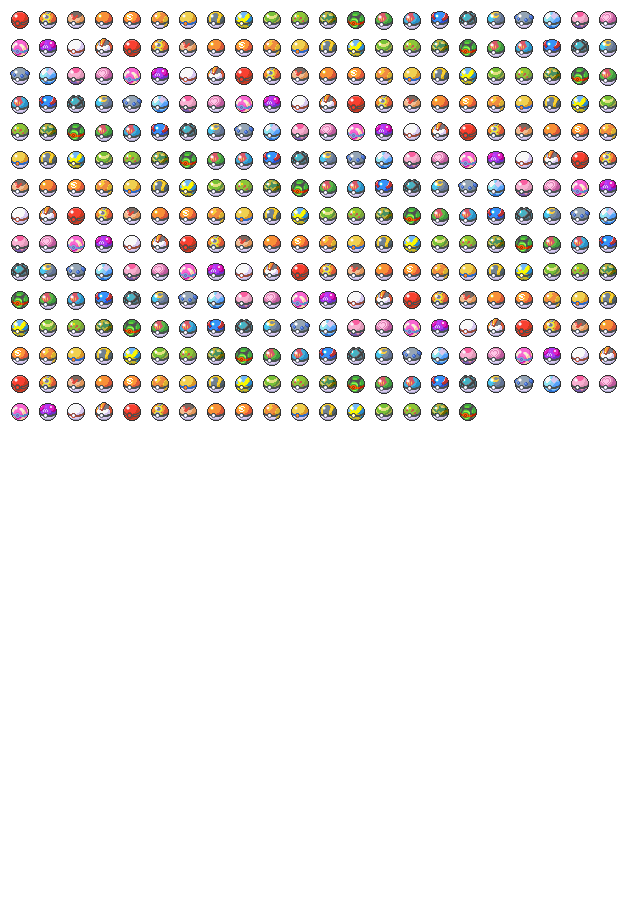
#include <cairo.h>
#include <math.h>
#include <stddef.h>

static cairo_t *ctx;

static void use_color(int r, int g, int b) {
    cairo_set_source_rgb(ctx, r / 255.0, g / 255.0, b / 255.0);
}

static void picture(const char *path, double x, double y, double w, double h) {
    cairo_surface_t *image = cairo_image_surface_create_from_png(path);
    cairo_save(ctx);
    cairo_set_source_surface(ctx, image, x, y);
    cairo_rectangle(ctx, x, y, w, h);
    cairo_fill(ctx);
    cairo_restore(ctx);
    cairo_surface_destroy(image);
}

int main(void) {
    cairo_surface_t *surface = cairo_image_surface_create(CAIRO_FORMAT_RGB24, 631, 917);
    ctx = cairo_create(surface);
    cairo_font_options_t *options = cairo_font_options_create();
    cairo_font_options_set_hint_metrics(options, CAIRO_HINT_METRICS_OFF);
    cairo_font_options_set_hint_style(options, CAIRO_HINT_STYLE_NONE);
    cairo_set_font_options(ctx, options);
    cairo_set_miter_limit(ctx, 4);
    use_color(255, 255, 255);
    cairo_paint(ctx);
    picture("img1.png", 11, 11, 18, 18);
    picture("img2.png", 39, 11, 18, 18);
    picture("img3.png", 67, 11, 18, 18);
    picture("img4.png", 95, 11, 18, 18);
    picture("img5.png", 123, 11, 18, 18);
    picture("img6.png", 151, 11, 18, 18);
    picture("img7.png", 179, 11, 18, 18);
    picture("img8.png", 207, 11, 18, 18);
    picture("img9.png", 235, 11, 18, 18);
    picture("img10.png", 263, 11, 18, 18);
    picture("img11.png", 291, 11, 18, 18);
    picture("img12.png", 319, 11, 18, 18);
    picture("img13.png", 347, 11, 18, 18);
    picture("img14.png", 375, 12, 18, 18);
    picture("img15.png", 403, 12, 18, 18);
    picture("img16.png", 431, 11, 18, 18);
    picture("img17.png", 459, 11, 18, 18);
    picture("img18.png", 487, 11, 18, 18);
    picture("img19.png", 514, 11, 20, 18);
    picture("img20.png", 543, 11, 18, 18);
    picture("img21.png", 571, 11, 18, 18);
    picture("img22.png", 599, 11, 18, 18);
    picture("img23.png", 11, 39, 18, 18);
    picture("img24.png", 39, 39, 18, 18);
    picture("img25.png", 67, 39, 18, 18);
    picture("img26.png", 95, 38, 18, 19);
    picture("img1.png", 123, 39, 18, 18);
    picture("img2.png", 151, 39, 18, 18);
    picture("img3.png", 179, 39, 18, 18);
    picture("img4.png", 207, 39, 18, 18);
    picture("img5.png", 235, 39, 18, 18);
    picture("img6.png", 263, 39, 18, 18);
    picture("img7.png", 291, 39, 18, 18);
    picture("img8.png", 319, 39, 18, 18);
    picture("img9.png", 347, 39, 18, 18);
    picture("img10.png", 375, 39, 18, 18);
    picture("img11.png", 403, 39, 18, 18);
    picture("img12.png", 431, 39, 18, 18);
    picture("img13.png", 459, 39, 18, 18);
    picture("img14.png", 487, 40, 18, 18);
    picture("img15.png", 515, 40, 18, 18);
    picture("img16.png", 543, 39, 18, 18);
    picture("img17.png", 571, 39, 18, 18);
    picture("img18.png", 599, 39, 18, 18);
    picture("img19.png", 10, 67, 20, 18);
    picture("img20.png", 39, 67, 18, 18);
    picture("img21.png", 67, 67, 18, 18);
    picture("img22.png", 95, 67, 18, 18);
    picture("img23.png", 123, 67, 18, 18);
    picture("img24.png", 151, 67, 18, 18);
    picture("img25.png", 179, 67, 18, 18);
    picture("img26.png", 207, 66, 18, 19);
    picture("img1.png", 235, 67, 18, 18);
    picture("img2.png", 263, 67, 18, 18);
    picture("img3.png", 291, 67, 18, 18);
    picture("img4.png", 319, 67, 18, 18);
    picture("img5.png", 347, 67, 18, 18);
    picture("img6.png", 375, 67, 18, 18);
    picture("img7.png", 403, 67, 18, 18);
    picture("img8.png", 431, 67, 18, 18);
    picture("img9.png", 459, 67, 18, 18);
    picture("img10.png", 487, 67, 18, 18);
    picture("img11.png", 515, 67, 18, 18);
    picture("img12.png", 543, 67, 18, 18);
    picture("img13.png", 571, 67, 18, 18);
    picture("img14.png", 599, 68, 18, 18);
    picture("img15.png", 11, 96, 18, 18);
    picture("img16.png", 39, 95, 18, 18);
    picture("img17.png", 67, 95, 18, 18);
    picture("img18.png", 95, 95, 18, 18);
    picture("img19.png", 122, 95, 20, 18);
    picture("img20.png", 151, 95, 18, 18);
    picture("img21.png", 179, 95, 18, 18);
    picture("img22.png", 207, 95, 18, 18);
    picture("img23.png", 235, 95, 18, 18);
    picture("img24.png", 263, 95, 18, 18);
    picture("img25.png", 291, 95, 18, 18);
    picture("img26.png", 319, 94, 18, 19);
    picture("img1.png", 347, 95, 18, 18);
    picture("img2.png", 375, 95, 18, 18);
    picture("img3.png", 403, 95, 18, 18);
    picture("img4.png", 431, 95, 18, 18);
    picture("img5.png", 459, 95, 18, 18);
    picture("img6.png", 487, 95, 18, 18);
    picture("img7.png", 515, 95, 18, 18);
    picture("img8.png", 543, 95, 18, 18);
    picture("img9.png", 571, 95, 18, 18);
    picture("img10.png", 599, 95, 18, 18);
    picture("img11.png", 11, 123, 18, 18);
    picture("img12.png", 39, 123, 18, 18);
    picture("img13.png", 67, 123, 18, 18);
    picture("img14.png", 95, 124, 18, 18);
    picture("img15.png", 123, 124, 18, 18);
    picture("img16.png", 151, 123, 18, 18);
    picture("img17.png", 179, 123, 18, 18);
    picture("img18.png", 207, 123, 18, 18);
    picture("img19.png", 234, 123, 20, 18);
    picture("img20.png", 263, 123, 18, 18);
    picture("img21.png", 291, 123, 18, 18);
    picture("img22.png", 319, 123, 18, 18);
    picture("img23.png", 347, 123, 18, 18);
    picture("img24.png", 375, 123, 18, 18);
    picture("img25.png", 403, 123, 18, 18);
    picture("img26.png", 431, 122, 18, 19);
    picture("img1.png", 459, 123, 18, 18);
    picture("img2.png", 487, 123, 18, 18);
    picture("img3.png", 515, 123, 18, 18);
    picture("img4.png", 543, 123, 18, 18);
    picture("img5.png", 571, 123, 18, 18);
    picture("img6.png", 599, 123, 18, 18);
    picture("img7.png", 11, 151, 18, 18);
    picture("img8.png", 39, 151, 18, 18);
    picture("img9.png", 67, 151, 18, 18);
    picture("img10.png", 95, 151, 18, 18);
    picture("img11.png", 123, 151, 18, 18);
    picture("img12.png", 151, 151, 18, 18);
    picture("img13.png", 179, 151, 18, 18);
    picture("img14.png", 207, 152, 18, 18);
    picture("img15.png", 235, 152, 18, 18);
    picture("img16.png", 263, 151, 18, 18);
    picture("img17.png", 291, 151, 18, 18);
    picture("img18.png", 319, 151, 18, 18);
    picture("img19.png", 346, 151, 20, 18);
    picture("img20.png", 375, 151, 18, 18);
    picture("img21.png", 403, 151, 18, 18);
    picture("img22.png", 431, 151, 18, 18);
    picture("img23.png", 459, 151, 18, 18);
    picture("img24.png", 487, 151, 18, 18);
    picture("img25.png", 515, 151, 18, 18);
    picture("img26.png", 543, 150, 18, 19);
    picture("img1.png", 571, 151, 18, 18);
    picture("img2.png", 599, 151, 18, 18);
    picture("img3.png", 11, 179, 18, 18);
    picture("img4.png", 39, 179, 18, 18);
    picture("img5.png", 67, 179, 18, 18);
    picture("img6.png", 95, 179, 18, 18);
    picture("img7.png", 123, 179, 18, 18);
    picture("img8.png", 151, 179, 18, 18);
    picture("img9.png", 179, 179, 18, 18);
    picture("img10.png", 207, 179, 18, 18);
    picture("img11.png", 235, 179, 18, 18);
    picture("img12.png", 263, 179, 18, 18);
    picture("img13.png", 291, 179, 18, 18);
    picture("img14.png", 319, 180, 18, 18);
    picture("img15.png", 347, 180, 18, 18);
    picture("img16.png", 375, 179, 18, 18);
    picture("img17.png", 403, 179, 18, 18);
    picture("img18.png", 431, 179, 18, 18);
    picture("img19.png", 458, 179, 20, 18);
    picture("img20.png", 487, 179, 18, 18);
    picture("img21.png", 515, 179, 18, 18);
    picture("img22.png", 543, 179, 18, 18);
    picture("img23.png", 571, 179, 18, 18);
    picture("img24.png", 599, 179, 18, 18);
    picture("img25.png", 11, 207, 18, 18);
    picture("img26.png", 39, 206, 18, 19);
    picture("img1.png", 67, 207, 18, 18);
    picture("img2.png", 95, 207, 18, 18);
    picture("img3.png", 123, 207, 18, 18);
    picture("img4.png", 151, 207, 18, 18);
    picture("img5.png", 179, 207, 18, 18);
    picture("img6.png", 207, 207, 18, 18);
    picture("img7.png", 235, 207, 18, 18);
    picture("img8.png", 263, 207, 18, 18);
    picture("img9.png", 291, 207, 18, 18);
    picture("img10.png", 319, 207, 18, 18);
    picture("img11.png", 347, 207, 18, 18);
    picture("img12.png", 375, 207, 18, 18);
    picture("img13.png", 403, 207, 18, 18);
    picture("img14.png", 431, 208, 18, 18);
    picture("img15.png", 459, 208, 18, 18);
    picture("img16.png", 487, 207, 18, 18);
    picture("img17.png", 515, 207, 18, 18);
    picture("img18.png", 543, 207, 18, 18);
    picture("img19.png", 570, 207, 20, 18);
    picture("img20.png", 599, 207, 18, 18);
    picture("img21.png", 11, 235, 18, 18);
    picture("img22.png", 39, 235, 18, 18);
    picture("img23.png", 67, 235, 18, 18);
    picture("img24.png", 95, 235, 18, 18);
    picture("img25.png", 123, 235, 18, 18);
    picture("img26.png", 151, 234, 18, 19);
    picture("img1.png", 179, 235, 18, 18);
    picture("img2.png", 207, 235, 18, 18);
    picture("img3.png", 235, 235, 18, 18);
    picture("img4.png", 263, 235, 18, 18);
    picture("img5.png", 291, 235, 18, 18);
    picture("img6.png", 319, 235, 18, 18);
    picture("img7.png", 347, 235, 18, 18);
    picture("img8.png", 375, 235, 18, 18);
    picture("img9.png", 403, 235, 18, 18);
    picture("img10.png", 431, 235, 18, 18);
    picture("img11.png", 459, 235, 18, 18);
    picture("img12.png", 487, 235, 18, 18);
    picture("img13.png", 515, 235, 18, 18);
    picture("img14.png", 543, 236, 18, 18);
    picture("img15.png", 571, 236, 18, 18);
    picture("img16.png", 599, 235, 18, 18);
    picture("img17.png", 11, 263, 18, 18);
    picture("img18.png", 39, 263, 18, 18);
    picture("img19.png", 66, 263, 20, 18);
    picture("img20.png", 95, 263, 18, 18);
    picture("img21.png", 123, 263, 18, 18);
    picture("img22.png", 151, 263, 18, 18);
    picture("img23.png", 179, 263, 18, 18);
    picture("img24.png", 207, 263, 18, 18);
    picture("img25.png", 235, 263, 18, 18);
    picture("img26.png", 263, 262, 18, 19);
    picture("img1.png", 291, 263, 18, 18);
    picture("img2.png", 319, 263, 18, 18);
    picture("img3.png", 347, 263, 18, 18);
    picture("img4.png", 375, 263, 18, 18);
    picture("img5.png", 403, 263, 18, 18);
    picture("img6.png", 431, 263, 18, 18);
    picture("img7.png", 459, 263, 18, 18);
    picture("img8.png", 487, 263, 18, 18);
    picture("img9.png", 515, 263, 18, 18);
    picture("img10.png", 543, 263, 18, 18);
    picture("img11.png", 571, 263, 18, 18);
    picture("img12.png", 599, 263, 18, 18);
    picture("img13.png", 11, 291, 18, 18);
    picture("img14.png", 39, 292, 18, 18);
    picture("img15.png", 67, 292, 18, 18);
    picture("img16.png", 95, 291, 18, 18);
    picture("img17.png", 123, 291, 18, 18);
    picture("img18.png", 151, 291, 18, 18);
    picture("img19.png", 178, 291, 20, 18);
    picture("img20.png", 207, 291, 18, 18);
    picture("img21.png", 235, 291, 18, 18);
    picture("img22.png", 263, 291, 18, 18);
    picture("img23.png", 291, 291, 18, 18);
    picture("img24.png", 319, 291, 18, 18);
    picture("img25.png", 347, 291, 18, 18);
    picture("img26.png", 375, 290, 18, 19);
    picture("img1.png", 403, 291, 18, 18);
    picture("img2.png", 431, 291, 18, 18);
    picture("img3.png", 459, 291, 18, 18);
    picture("img4.png", 487, 291, 18, 18);
    picture("img5.png", 515, 291, 18, 18);
    picture("img6.png", 543, 291, 18, 18);
    picture("img7.png", 571, 291, 18, 18);
    picture("img8.png", 599, 291, 18, 18);
    picture("img9.png", 11, 319, 18, 18);
    picture("img10.png", 39, 319, 18, 18);
    picture("img11.png", 67, 319, 18, 18);
    picture("img12.png", 95, 319, 18, 18);
    picture("img13.png", 123, 319, 18, 18);
    picture("img14.png", 151, 320, 18, 18);
    picture("img15.png", 179, 320, 18, 18);
    picture("img16.png", 207, 319, 18, 18);
    picture("img17.png", 235, 319, 18, 18);
    picture("img18.png", 263, 319, 18, 18);
    picture("img19.png", 290, 319, 20, 18);
    picture("img20.png", 319, 319, 18, 18);
    picture("img21.png", 347, 319, 18, 18);
    picture("img22.png", 375, 319, 18, 18);
    picture("img23.png", 403, 319, 18, 18);
    picture("img24.png", 431, 319, 18, 18);
    picture("img25.png", 459, 319, 18, 18);
    picture("img26.png", 487, 318, 18, 19);
    picture("img1.png", 515, 319, 18, 18);
    picture("img2.png", 543, 319, 18, 18);
    picture("img3.png", 571, 319, 18, 18);
    picture("img4.png", 599, 319, 18, 18);
    picture("img5.png", 11, 347, 18, 18);
    picture("img6.png", 39, 347, 18, 18);
    picture("img7.png", 67, 347, 18, 18);
    picture("img8.png", 95, 347, 18, 18);
    picture("img9.png", 123, 347, 18, 18);
    picture("img10.png", 151, 347, 18, 18);
    picture("img11.png", 179, 347, 18, 18);
    picture("img12.png", 207, 347, 18, 18);
    picture("img13.png", 235, 347, 18, 18);
    picture("img14.png", 263, 348, 18, 18);
    picture("img15.png", 291, 348, 18, 18);
    picture("img16.png", 319, 347, 18, 18);
    picture("img17.png", 347, 347, 18, 18);
    picture("img18.png", 375, 347, 18, 18);
    picture("img19.png", 402, 347, 20, 18);
    picture("img20.png", 431, 347, 18, 18);
    picture("img21.png", 459, 347, 18, 18);
    picture("img22.png", 487, 347, 18, 18);
    picture("img23.png", 515, 347, 18, 18);
    picture("img24.png", 543, 347, 18, 18);
    picture("img25.png", 571, 347, 18, 18);
    picture("img26.png", 599, 346, 18, 19);
    picture("img1.png", 11, 375, 18, 18);
    picture("img2.png", 39, 375, 18, 18);
    picture("img3.png", 67, 375, 18, 18);
    picture("img4.png", 95, 375, 18, 18);
    picture("img5.png", 123, 375, 18, 18);
    picture("img6.png", 151, 375, 18, 18);
    picture("img7.png", 179, 375, 18, 18);
    picture("img8.png", 207, 375, 18, 18);
    picture("img9.png", 235, 375, 18, 18);
    picture("img10.png", 263, 375, 18, 18);
    picture("img11.png", 291, 375, 18, 18);
    picture("img12.png", 319, 375, 18, 18);
    picture("img13.png", 347, 375, 18, 18);
    picture("img14.png", 375, 376, 18, 18);
    picture("img15.png", 403, 376, 18, 18);
    picture("img16.png", 431, 375, 18, 18);
    picture("img17.png", 459, 375, 18, 18);
    picture("img18.png", 487, 375, 18, 18);
    picture("img19.png", 514, 375, 20, 18);
    picture("img20.png", 543, 375, 18, 18);
    picture("img21.png", 571, 375, 18, 18);
    picture("img22.png", 599, 375, 18, 18);
    picture("img23.png", 11, 403, 18, 18);
    picture("img24.png", 39, 403, 18, 18);
    picture("img25.png", 67, 403, 18, 18);
    picture("img26.png", 95, 402, 18, 19);
    picture("img1.png", 123, 403, 18, 18);
    picture("img2.png", 151, 403, 18, 18);
    picture("img3.png", 179, 403, 18, 18);
    picture("img4.png", 207, 403, 18, 18);
    picture("img5.png", 235, 403, 18, 18);
    picture("img6.png", 263, 403, 18, 18);
    picture("img7.png", 291, 403, 18, 18);
    picture("img8.png", 319, 403, 18, 18);
    picture("img9.png", 347, 403, 18, 18);
    picture("img10.png", 375, 403, 18, 18);
    picture("img11.png", 403, 403, 18, 18);
    picture("img12.png", 431, 403, 18, 18);
    picture("img13.png", 459, 403, 18, 18);
    cairo_surface_write_to_png(surface, "result.png");
    cairo_font_options_destroy(options);
    cairo_destroy(ctx);
    cairo_surface_destroy(surface);
    return 0;
}
